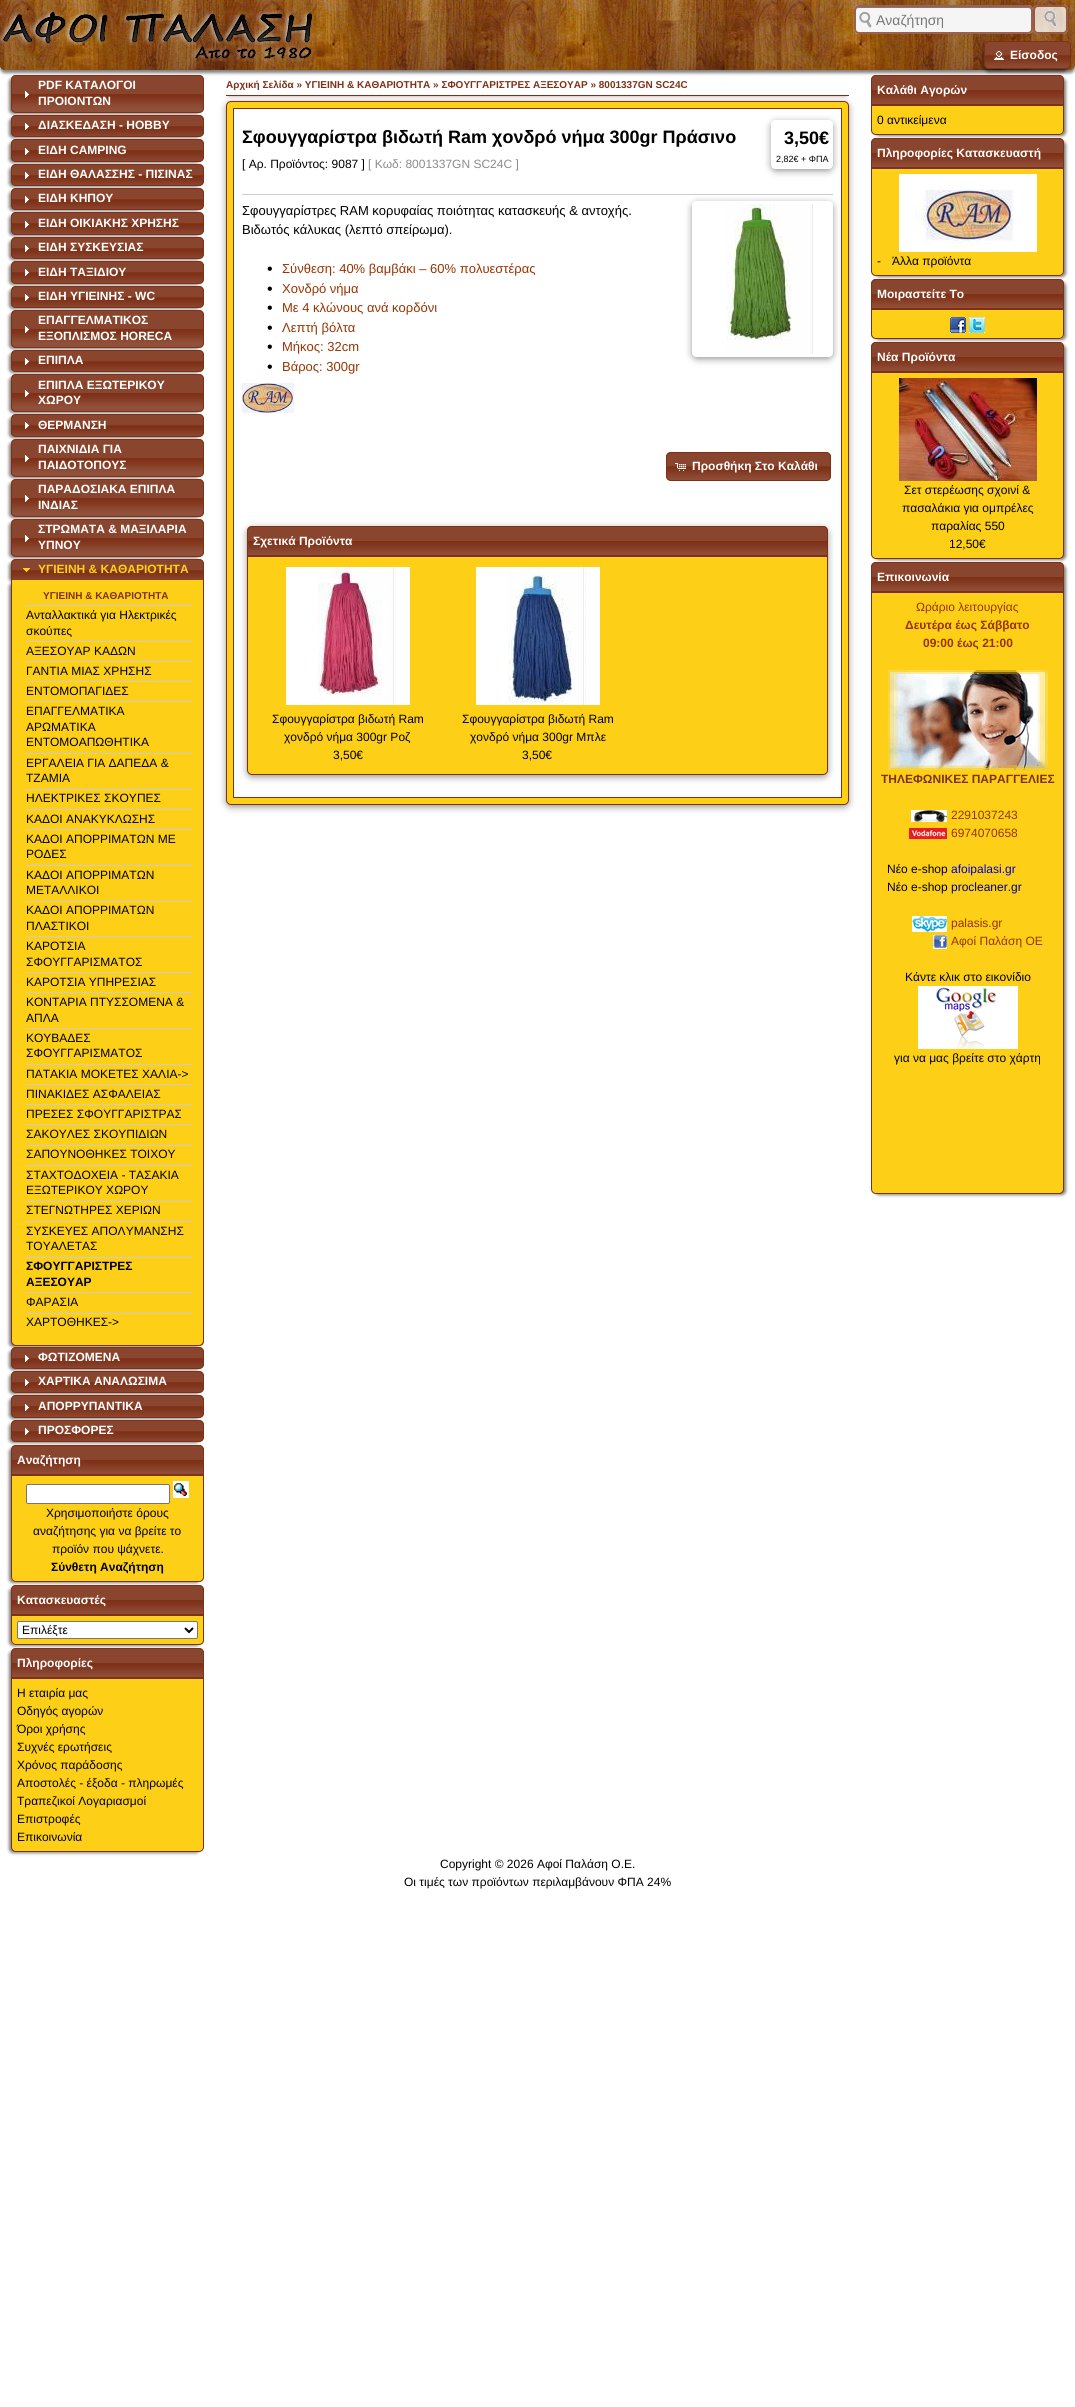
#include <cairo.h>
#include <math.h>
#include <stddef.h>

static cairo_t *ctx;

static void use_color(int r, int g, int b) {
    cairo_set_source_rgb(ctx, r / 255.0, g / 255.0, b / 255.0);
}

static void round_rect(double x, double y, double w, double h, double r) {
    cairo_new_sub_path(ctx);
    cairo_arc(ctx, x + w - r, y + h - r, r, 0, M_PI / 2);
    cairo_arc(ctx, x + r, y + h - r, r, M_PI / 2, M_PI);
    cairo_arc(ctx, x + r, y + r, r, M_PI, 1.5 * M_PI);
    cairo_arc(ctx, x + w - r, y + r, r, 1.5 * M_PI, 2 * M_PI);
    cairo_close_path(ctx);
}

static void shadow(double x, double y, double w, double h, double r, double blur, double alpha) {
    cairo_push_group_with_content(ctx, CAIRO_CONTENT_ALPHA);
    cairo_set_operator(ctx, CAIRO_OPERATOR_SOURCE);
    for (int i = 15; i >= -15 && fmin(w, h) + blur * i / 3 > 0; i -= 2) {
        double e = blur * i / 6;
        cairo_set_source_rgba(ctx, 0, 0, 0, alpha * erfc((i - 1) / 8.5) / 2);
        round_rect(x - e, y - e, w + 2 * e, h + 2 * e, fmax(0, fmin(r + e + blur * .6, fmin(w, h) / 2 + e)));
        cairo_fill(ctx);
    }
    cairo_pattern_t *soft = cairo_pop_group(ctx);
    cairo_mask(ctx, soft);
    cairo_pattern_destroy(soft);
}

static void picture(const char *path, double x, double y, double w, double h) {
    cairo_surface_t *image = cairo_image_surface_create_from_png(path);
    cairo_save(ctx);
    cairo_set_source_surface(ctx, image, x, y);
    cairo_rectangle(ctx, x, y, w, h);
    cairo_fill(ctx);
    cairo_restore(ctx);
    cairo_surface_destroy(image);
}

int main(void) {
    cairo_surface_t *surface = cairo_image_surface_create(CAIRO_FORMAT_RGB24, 1075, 2407);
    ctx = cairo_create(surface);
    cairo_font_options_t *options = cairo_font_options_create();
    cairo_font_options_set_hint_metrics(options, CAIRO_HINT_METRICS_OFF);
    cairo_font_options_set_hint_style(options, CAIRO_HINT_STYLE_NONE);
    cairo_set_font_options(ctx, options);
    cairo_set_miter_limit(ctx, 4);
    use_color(255, 255, 255);
    cairo_paint(ctx);
    use_color(0, 0, 0);
    shadow(0, 3, 1075, 70, 5, 1.5, 0.5);
    picture("img1.png", 0, 0, 1075, 70);
    picture("img2.png", 0, 0, 348, 70);
    use_color(245, 245, 245);
    round_rect(854, 5, 179, 29, 5);
    cairo_fill(ctx);
    picture("img3.png", 859, 11, 13, 17);
    use_color(123, 123, 123);
    cairo_new_path(ctx);
    cairo_move_to(ctx, 859, 8);
    cairo_line_to(ctx, 1028, 8);
    cairo_curve_to(ctx, 1030, 8, 1031, 9, 1031, 11);
    cairo_line_to(ctx, 1031, 10);
    cairo_curve_to(ctx, 1031, 8, 1030, 7, 1028, 7);
    cairo_line_to(ctx, 859, 7);
    cairo_curve_to(ctx, 857, 7, 856, 8, 856, 10);
    cairo_line_to(ctx, 856, 11);
    cairo_curve_to(ctx, 856, 9, 857, 8, 859, 8);
    cairo_close_path(ctx);
    cairo_fill(ctx);
    round_rect(855, 6, 177, 27, 4);
    cairo_set_source_rgba(ctx, 0.494, 0.192, 0.09, 0.75);
    cairo_stroke(ctx);
    cairo_select_font_face(ctx, "Liberation Sans", CAIRO_FONT_SLANT_NORMAL, CAIRO_FONT_WEIGHT_NORMAL);
    cairo_set_font_size(ctx, 14);
    use_color(117, 117, 117);
    cairo_move_to(ctx, 876, 25);
    cairo_show_text(ctx, "Αναζήτηση");
    cairo_set_source_rgba(ctx, 1, 1, 1, 0.75);
    round_rect(1033, 5, 35, 29, 5);
    cairo_fill(ctx);
    round_rect(1034, 6, 33, 27, 4);
    cairo_set_source_rgba(ctx, 0.494, 0.192, 0.09, 0.75);
    cairo_stroke(ctx);
    picture("img4.png", 1044, 10, 13, 17);
    use_color(0, 0, 0);
    shadow(984, 44, 84, 28, 5, 1.5, 0.5);
    picture("img5.png", 984, 41, 87, 28);
    round_rect(984.5, 41.5, 86, 27, 4.5);
    use_color(126, 49, 23);
    cairo_set_line_width(ctx, 1);
    cairo_stroke(ctx);
    picture("img6.png", 994, 50, 10, 10);
    cairo_select_font_face(ctx, "Liberation Sans", CAIRO_FONT_SLANT_NORMAL, CAIRO_FONT_WEIGHT_BOLD);
    cairo_set_font_size(ctx, 12);
    use_color(255, 255, 255);
    cairo_move_to(ctx, 1010, 59);
    cairo_show_text(ctx, "Είσοδος");
    use_color(0, 0, 0);
    shadow(9, 78, 191, 36, 4, 1.5, 0.5);
    picture("img7.png", 11, 75, 193, 38);
    round_rect(11.5, 75.5, 192, 37, 4.5);
    use_color(126, 49, 23);
    cairo_stroke(ctx);
    picture("img8.png", 25, 91, 4, 7);
    use_color(255, 255, 255);
    cairo_move_to(ctx, 38, 89);
    cairo_show_text(ctx, "PDF ΚΑΤΑΛΟΓΟΙ");
    cairo_move_to(ctx, 38, 105);
    cairo_show_text(ctx, "ΠΡΟΙΟΝΤΩΝ");
    use_color(0, 0, 0);
    shadow(9, 118, 191, 20, 4, 1.5, 0.5);
    picture("img9.png", 11, 115, 193, 22);
    round_rect(11.5, 115.5, 192, 21, 4.5);
    use_color(126, 49, 23);
    cairo_stroke(ctx);
    picture("img10.png", 25, 123, 4, 7);
    use_color(255, 255, 255);
    cairo_move_to(ctx, 38, 129);
    cairo_show_text(ctx, "ΔΙΑΣΚΕΔΑΣΗ - HOBBY");
    use_color(0, 0, 0);
    shadow(9, 142, 191, 21, 4, 1.5, 0.5);
    picture("img11.png", 11, 139, 193, 23);
    round_rect(11.5, 139.5, 192, 22, 4.5);
    use_color(126, 49, 23);
    cairo_stroke(ctx);
    picture("img12.png", 25, 148, 4, 7);
    use_color(255, 255, 255);
    cairo_move_to(ctx, 38, 154);
    cairo_show_text(ctx, "ΕΙΔΗ CAMPING");
    use_color(0, 0, 0);
    shadow(9, 167, 191, 20, 4, 1.5, 0.5);
    picture("img9.png", 11, 164, 193, 22);
    round_rect(11.5, 164.5, 192, 21, 4.5);
    use_color(126, 49, 23);
    cairo_stroke(ctx);
    picture("img10.png", 25, 172, 4, 7);
    use_color(255, 255, 255);
    cairo_move_to(ctx, 38, 178);
    cairo_show_text(ctx, "ΕΙΔΗ ΘΑΛΑΣΣΗΣ - ΠΙΣΙΝΑΣ");
    use_color(0, 0, 0);
    shadow(9, 191, 191, 20, 4, 1.5, 0.5);
    picture("img9.png", 11, 188, 193, 22);
    round_rect(11.5, 188.5, 192, 21, 4.5);
    use_color(126, 49, 23);
    cairo_stroke(ctx);
    picture("img10.png", 25, 196, 4, 7);
    use_color(255, 255, 255);
    cairo_move_to(ctx, 38, 202);
    cairo_show_text(ctx, "ΕΙΔΗ ΚΗΠΟΥ");
    use_color(0, 0, 0);
    shadow(9, 215, 191, 21, 4, 1.5, 0.5);
    picture("img11.png", 11, 212, 193, 23);
    round_rect(11.5, 212.5, 192, 22, 4.5);
    use_color(126, 49, 23);
    cairo_stroke(ctx);
    picture("img12.png", 25, 221, 4, 7);
    use_color(255, 255, 255);
    cairo_move_to(ctx, 38, 227);
    cairo_show_text(ctx, "ΕΙΔΗ ΟΙΚΙΑΚΗΣ ΧΡΗΣΗΣ");
    use_color(0, 0, 0);
    shadow(9, 240, 191, 20, 4, 1.5, 0.5);
    picture("img13.png", 11, 237, 193, 22);
    round_rect(11.5, 237.5, 192, 21, 4.5);
    use_color(126, 49, 23);
    cairo_stroke(ctx);
    picture("img10.png", 25, 245, 4, 7);
    use_color(255, 255, 255);
    cairo_move_to(ctx, 38, 251);
    cairo_show_text(ctx, "ΕΙΔΗ ΣΥΣΚΕΥΣΙΑΣ");
    use_color(0, 0, 0);
    shadow(9, 264, 191, 21, 4, 1.5, 0.5);
    picture("img11.png", 11, 261, 193, 23);
    round_rect(11.5, 261.5, 192, 22, 4.5);
    use_color(126, 49, 23);
    cairo_stroke(ctx);
    picture("img10.png", 25, 269, 4, 7);
    use_color(255, 255, 255);
    cairo_move_to(ctx, 38, 276);
    cairo_show_text(ctx, "ΕΙΔΗ ΤΑΞΙΔΙΟΥ");
    use_color(0, 0, 0);
    shadow(9, 289, 191, 20, 4, 1.5, 0.5);
    picture("img9.png", 11, 286, 193, 22);
    round_rect(11.5, 286.5, 192, 21, 4.5);
    use_color(126, 49, 23);
    cairo_stroke(ctx);
    picture("img10.png", 25, 294, 4, 7);
    use_color(255, 255, 255);
    cairo_move_to(ctx, 38, 300);
    cairo_show_text(ctx, "ΕΙΔΗ ΥΓΙΕΙΝΗΣ - WC");
    use_color(0, 0, 0);
    shadow(9, 313, 191, 36, 4, 1.5, 0.5);
    picture("img14.png", 11, 310, 193, 38);
    round_rect(11.5, 310.5, 192, 37, 4.5);
    use_color(126, 49, 23);
    cairo_stroke(ctx);
    picture("img8.png", 25, 326, 4, 7);
    use_color(255, 255, 255);
    cairo_move_to(ctx, 38, 324);
    cairo_show_text(ctx, "ΕΠΑΓΓΕΛΜΑΤΙΚΟΣ");
    cairo_move_to(ctx, 38, 340);
    cairo_show_text(ctx, "ΕΞΟΠΛΙΣΜΟΣ HORECA");
    use_color(0, 0, 0);
    shadow(9, 353, 191, 20, 4, 1.5, 0.5);
    picture("img9.png", 11, 350, 193, 22);
    round_rect(11.5, 350.5, 192, 21, 4.5);
    use_color(126, 49, 23);
    cairo_stroke(ctx);
    picture("img10.png", 25, 358, 4, 7);
    use_color(255, 255, 255);
    cairo_move_to(ctx, 38, 364);
    cairo_show_text(ctx, "ΕΠΙΠΛΑ");
    use_color(0, 0, 0);
    shadow(9, 377, 191, 36, 4, 1.5, 0.5);
    picture("img14.png", 11, 374, 193, 38);
    round_rect(11.5, 374.5, 192, 37, 4.5);
    use_color(126, 49, 23);
    cairo_stroke(ctx);
    picture("img8.png", 25, 390, 4, 7);
    use_color(255, 255, 255);
    cairo_move_to(ctx, 38, 389);
    cairo_show_text(ctx, "ΕΠΙΠΛΑ ΕΞΩΤΕΡΙΚΟΥ");
    cairo_move_to(ctx, 38, 404);
    cairo_show_text(ctx, "ΧΩΡΟΥ");
    use_color(0, 0, 0);
    shadow(9, 417, 191, 21, 4, 1.5, 0.5);
    picture("img11.png", 11, 414, 193, 23);
    round_rect(11.5, 414.5, 192, 22, 4.5);
    use_color(126, 49, 23);
    cairo_stroke(ctx);
    picture("img10.png", 25, 422, 4, 7);
    use_color(255, 255, 255);
    cairo_move_to(ctx, 38, 429);
    cairo_show_text(ctx, "ΘΕΡΜΑΝΣΗ");
    use_color(0, 0, 0);
    shadow(9, 442, 191, 36, 4, 1.5, 0.5);
    picture("img14.png", 11, 439, 193, 38);
    round_rect(11.5, 439.5, 192, 37, 4.5);
    use_color(126, 49, 23);
    cairo_stroke(ctx);
    picture("img8.png", 25, 455, 4, 7);
    use_color(255, 255, 255);
    cairo_move_to(ctx, 38, 453);
    cairo_show_text(ctx, "ΠΑΙΧΝΙΔΙΑ ΓΙΑ");
    cairo_move_to(ctx, 38, 469);
    cairo_show_text(ctx, "ΠΑΙΔΟΤΟΠΟΥΣ");
    use_color(0, 0, 0);
    shadow(9, 482, 191, 36, 4, 1.5, 0.5);
    picture("img14.png", 11, 479, 193, 38);
    round_rect(11.5, 479.5, 192, 37, 4.5);
    use_color(126, 49, 23);
    cairo_stroke(ctx);
    picture("img8.png", 25, 495, 4, 7);
    use_color(255, 255, 255);
    cairo_move_to(ctx, 38, 493);
    cairo_show_text(ctx, "ΠΑΡΑΔΟΣΙΑΚΑ ΕΠΙΠΛΑ");
    cairo_move_to(ctx, 38, 509);
    cairo_show_text(ctx, "ΙΝΔΙΑΣ");
    use_color(0, 0, 0);
    shadow(9, 522, 191, 36, 4, 1.5, 0.5);
    picture("img14.png", 11, 519, 193, 38);
    round_rect(11.5, 519.5, 192, 37, 4.5);
    use_color(126, 49, 23);
    cairo_stroke(ctx);
    picture("img8.png", 25, 535, 4, 7);
    use_color(255, 255, 255);
    cairo_move_to(ctx, 38, 533);
    cairo_show_text(ctx, "ΣΤΡΩΜΑΤΑ & ΜΑΞΙΛΑΡΙΑ");
    cairo_move_to(ctx, 38, 549);
    cairo_show_text(ctx, "ΥΠΝΟΥ");
    use_color(0, 0, 0);
    shadow(9, 562, 191, 20, 4, 1.5, 0.5);
    picture("img15.png", 11, 559, 193, 21);
    cairo_new_path(ctx);
    cairo_move_to(ctx, 16, 559.5);
    cairo_line_to(ctx, 199, 559.5);
    cairo_curve_to(ctx, 201.5, 559.5, 203.5, 561.5, 203.5, 564);
    cairo_line_to(ctx, 203.5, 580.5);
    cairo_line_to(ctx, 11.5, 580.5);
    cairo_line_to(ctx, 11.5, 564);
    cairo_curve_to(ctx, 11.5, 561.5, 13.5, 559.5, 16, 559.5);
    cairo_close_path(ctx);
    use_color(126, 49, 23);
    cairo_stroke(ctx);
    picture("img16.png", 23, 568, 7, 4);
    use_color(253, 208, 23);
    cairo_move_to(ctx, 38, 573);
    cairo_show_text(ctx, "ΥΓΙΕΙΝΗ & ΚΑΘΑΡΙΟΤΗΤΑ");
    use_color(0, 0, 0);
    shadow(9, 583, 191, 764, 4, 1.5, 0.5);
    use_color(253, 208, 23);
    cairo_new_path(ctx);
    cairo_move_to(ctx, 11, 580);
    cairo_line_to(ctx, 204, 580);
    cairo_line_to(ctx, 204, 1341);
    cairo_curve_to(ctx, 204, 1344, 202, 1346, 199, 1346);
    cairo_line_to(ctx, 16, 1346);
    cairo_curve_to(ctx, 13, 1346, 11, 1344, 11, 1341);
    cairo_close_path(ctx);
    cairo_fill(ctx);
    use_color(126, 49, 23);
    cairo_set_fill_rule(ctx, CAIRO_FILL_RULE_EVEN_ODD);
    cairo_new_path(ctx);
    cairo_move_to(ctx, 11, 580);
    cairo_line_to(ctx, 204, 580);
    cairo_line_to(ctx, 204, 1341);
    cairo_curve_to(ctx, 204, 1344, 202, 1346, 199, 1346);
    cairo_line_to(ctx, 16, 1346);
    cairo_curve_to(ctx, 13, 1346, 11, 1344, 11, 1341);
    cairo_close_path(ctx);
    cairo_move_to(ctx, 12, 580);
    cairo_line_to(ctx, 203, 580);
    cairo_line_to(ctx, 203, 1341);
    cairo_curve_to(ctx, 203, 1343, 201, 1345, 199, 1345);
    cairo_line_to(ctx, 16, 1345);
    cairo_curve_to(ctx, 14, 1345, 12, 1343, 12, 1341);
    cairo_close_path(ctx);
    cairo_fill(ctx);
    cairo_set_font_size(ctx, 10);
    cairo_move_to(ctx, 43, 599);
    cairo_show_text(ctx, "ΥΓΙΕΙΝΗ & ΚΑΘΑΡΙΟΤΗΤΑ");
    use_color(204, 204, 204);
    cairo_rectangle(ctx, 26, 605, 166, 1);
    cairo_fill(ctx);
    cairo_select_font_face(ctx, "Liberation Sans", CAIRO_FONT_SLANT_NORMAL, CAIRO_FONT_WEIGHT_NORMAL);
    cairo_set_font_size(ctx, 12);
    use_color(0, 0, 0);
    cairo_move_to(ctx, 26, 619);
    cairo_show_text(ctx, "Ανταλλακτικά για Ηλεκτρικές");
    cairo_move_to(ctx, 26, 635);
    cairo_show_text(ctx, "σκούπες");
    use_color(204, 204, 204);
    cairo_rectangle(ctx, 26, 641, 166, 1);
    cairo_fill(ctx);
    use_color(0, 0, 0);
    cairo_move_to(ctx, 26, 655);
    cairo_show_text(ctx, "ΑΞΕΣΟΥΑΡ ΚΑΔΩΝ");
    use_color(204, 204, 204);
    cairo_rectangle(ctx, 26, 661, 166, 1);
    cairo_fill(ctx);
    use_color(0, 0, 0);
    cairo_move_to(ctx, 26, 675);
    cairo_show_text(ctx, "ΓΑΝΤΙΑ ΜΙΑΣ ΧΡΗΣΗΣ");
    use_color(204, 204, 204);
    cairo_rectangle(ctx, 26, 681, 166, 1);
    cairo_fill(ctx);
    use_color(0, 0, 0);
    cairo_move_to(ctx, 26, 695);
    cairo_show_text(ctx, "ΕΝΤΟΜΟΠΑΓΙΔΕΣ");
    use_color(204, 204, 204);
    cairo_rectangle(ctx, 26, 701, 166, 1);
    cairo_fill(ctx);
    use_color(0, 0, 0);
    cairo_move_to(ctx, 26, 715);
    cairo_show_text(ctx, "ΕΠΑΓΓΕΛΜΑΤΙΚΑ");
    cairo_move_to(ctx, 26, 731);
    cairo_show_text(ctx, "ΑΡΩΜΑΤΙΚΑ");
    cairo_move_to(ctx, 26, 746);
    cairo_show_text(ctx, "ΕΝΤΟΜΟΑΠΩΘΗΤΙΚΑ");
    use_color(204, 204, 204);
    cairo_rectangle(ctx, 26, 753, 166, 1);
    cairo_fill(ctx);
    use_color(0, 0, 0);
    cairo_move_to(ctx, 26, 767);
    cairo_show_text(ctx, "ΕΡΓΑΛΕΙΑ ΓΙΑ ΔΑΠΕΔΑ &");
    cairo_move_to(ctx, 26, 782);
    cairo_show_text(ctx, "ΤΖΑΜΙΑ");
    use_color(204, 204, 204);
    cairo_rectangle(ctx, 26, 789, 166, 1);
    cairo_fill(ctx);
    use_color(0, 0, 0);
    cairo_move_to(ctx, 26, 802);
    cairo_show_text(ctx, "ΗΛΕΚΤΡΙΚΕΣ ΣΚΟΥΠΕΣ");
    use_color(204, 204, 204);
    cairo_rectangle(ctx, 26, 809, 166, 1);
    cairo_fill(ctx);
    use_color(0, 0, 0);
    cairo_move_to(ctx, 26, 823);
    cairo_show_text(ctx, "ΚΑΔΟΙ ΑΝΑΚΥΚΛΩΣΗΣ");
    use_color(204, 204, 204);
    cairo_rectangle(ctx, 26, 829, 166, 1);
    cairo_fill(ctx);
    use_color(0, 0, 0);
    cairo_move_to(ctx, 26, 843);
    cairo_show_text(ctx, "ΚΑΔΟΙ ΑΠΟΡΡΙΜΑΤΩΝ ΜΕ");
    cairo_move_to(ctx, 26, 858);
    cairo_show_text(ctx, "ΡΟΔΕΣ");
    use_color(204, 204, 204);
    cairo_rectangle(ctx, 26, 865, 166, 1);
    cairo_fill(ctx);
    use_color(0, 0, 0);
    cairo_move_to(ctx, 26, 879);
    cairo_show_text(ctx, "ΚΑΔΟΙ ΑΠΟΡΡΙΜΑΤΩΝ");
    cairo_move_to(ctx, 26, 894);
    cairo_show_text(ctx, "ΜΕΤΑΛΛΙΚΟΙ");
    use_color(204, 204, 204);
    cairo_rectangle(ctx, 26, 901, 166, 1);
    cairo_fill(ctx);
    use_color(0, 0, 0);
    cairo_move_to(ctx, 26, 914);
    cairo_show_text(ctx, "ΚΑΔΟΙ ΑΠΟΡΡΙΜΑΤΩΝ");
    cairo_move_to(ctx, 26, 930);
    cairo_show_text(ctx, "ΠΛΑΣΤΙΚΟΙ");
    use_color(204, 204, 204);
    cairo_rectangle(ctx, 26, 936, 166, 1);
    cairo_fill(ctx);
    use_color(0, 0, 0);
    cairo_move_to(ctx, 26, 950);
    cairo_show_text(ctx, "ΚΑΡΟΤΣΙΑ");
    cairo_move_to(ctx, 26, 966);
    cairo_show_text(ctx, "ΣΦΟΥΓΓΑΡΙΣΜΑΤΟΣ");
    use_color(204, 204, 204);
    cairo_rectangle(ctx, 26, 972, 166, 1);
    cairo_fill(ctx);
    use_color(0, 0, 0);
    cairo_move_to(ctx, 26, 986);
    cairo_show_text(ctx, "ΚΑΡΟΤΣΙΑ ΥΠΗΡΕΣΙΑΣ");
    use_color(204, 204, 204);
    cairo_rectangle(ctx, 26, 992, 166, 1);
    cairo_fill(ctx);
    use_color(0, 0, 0);
    cairo_move_to(ctx, 26, 1006);
    cairo_show_text(ctx, "ΚΟΝΤΑΡΙΑ ΠΤΥΣΣΟΜΕΝΑ &");
    cairo_move_to(ctx, 26, 1022);
    cairo_show_text(ctx, "ΑΠΛΑ");
    use_color(204, 204, 204);
    cairo_rectangle(ctx, 26, 1028, 166, 1);
    cairo_fill(ctx);
    use_color(0, 0, 0);
    cairo_move_to(ctx, 26, 1042);
    cairo_show_text(ctx, "ΚΟΥΒΑΔΕΣ");
    cairo_move_to(ctx, 26, 1057);
    cairo_show_text(ctx, "ΣΦΟΥΓΓΑΡΙΣΜΑΤΟΣ");
    use_color(204, 204, 204);
    cairo_rectangle(ctx, 26, 1064, 166, 1);
    cairo_fill(ctx);
    use_color(0, 0, 0);
    cairo_move_to(ctx, 26, 1078);
    cairo_show_text(ctx, "ΠΑΤΑΚΙΑ ΜΟΚΕΤΕΣ ΧΑΛΙΑ->");
    use_color(204, 204, 204);
    cairo_rectangle(ctx, 26, 1084, 166, 1);
    cairo_fill(ctx);
    use_color(0, 0, 0);
    cairo_move_to(ctx, 26, 1098);
    cairo_show_text(ctx, "ΠΙΝΑΚΙΔΕΣ ΑΣΦΑΛΕΙΑΣ");
    use_color(204, 204, 204);
    cairo_rectangle(ctx, 26, 1104, 166, 1);
    cairo_fill(ctx);
    use_color(0, 0, 0);
    cairo_move_to(ctx, 26, 1118);
    cairo_show_text(ctx, "ΠΡΕΣΕΣ ΣΦΟΥΓΓΑΡΙΣΤΡΑΣ");
    use_color(204, 204, 204);
    cairo_rectangle(ctx, 26, 1124, 166, 1);
    cairo_fill(ctx);
    use_color(0, 0, 0);
    cairo_move_to(ctx, 26, 1138);
    cairo_show_text(ctx, "ΣΑΚΟΥΛΕΣ ΣΚΟΥΠΙΔΙΩΝ");
    use_color(204, 204, 204);
    cairo_rectangle(ctx, 26, 1145, 166, 1);
    cairo_fill(ctx);
    use_color(0, 0, 0);
    cairo_move_to(ctx, 26, 1158);
    cairo_show_text(ctx, "ΣΑΠΟΥΝΟΘΗΚΕΣ ΤΟΙΧΟΥ");
    use_color(204, 204, 204);
    cairo_rectangle(ctx, 26, 1165, 166, 1);
    cairo_fill(ctx);
    use_color(0, 0, 0);
    cairo_move_to(ctx, 26, 1179);
    cairo_show_text(ctx, "ΣΤΑΧΤΟΔΟΧΕΙΑ - ΤΑΣΑΚΙΑ");
    cairo_move_to(ctx, 26, 1194);
    cairo_show_text(ctx, "ΕΞΩΤΕΡΙΚΟΥ ΧΩΡΟΥ");
    use_color(204, 204, 204);
    cairo_rectangle(ctx, 26, 1201, 166, 1);
    cairo_fill(ctx);
    use_color(0, 0, 0);
    cairo_move_to(ctx, 26, 1214);
    cairo_show_text(ctx, "ΣΤΕΓΝΩΤΗΡΕΣ ΧΕΡΙΩΝ");
    use_color(204, 204, 204);
    cairo_rectangle(ctx, 26, 1221, 166, 1);
    cairo_fill(ctx);
    use_color(0, 0, 0);
    cairo_move_to(ctx, 26, 1235);
    cairo_show_text(ctx, "ΣΥΣΚΕΥΕΣ ΑΠΟΛΥΜΑΝΣΗΣ");
    cairo_move_to(ctx, 26, 1250);
    cairo_show_text(ctx, "ΤΟΥΑΛΕΤΑΣ");
    use_color(204, 204, 204);
    cairo_rectangle(ctx, 26, 1257, 166, 1);
    cairo_fill(ctx);
    cairo_select_font_face(ctx, "Liberation Sans", CAIRO_FONT_SLANT_NORMAL, CAIRO_FONT_WEIGHT_BOLD);
    use_color(0, 0, 0);
    cairo_move_to(ctx, 26, 1270);
    cairo_show_text(ctx, "ΣΦΟΥΓΓΑΡΙΣΤΡΕΣ");
    cairo_move_to(ctx, 26, 1286);
    cairo_show_text(ctx, "ΑΞΕΣΟΥΑΡ");
    use_color(204, 204, 204);
    cairo_rectangle(ctx, 26, 1292, 166, 1);
    cairo_fill(ctx);
    cairo_select_font_face(ctx, "Liberation Sans", CAIRO_FONT_SLANT_NORMAL, CAIRO_FONT_WEIGHT_NORMAL);
    use_color(0, 0, 0);
    cairo_move_to(ctx, 26, 1306);
    cairo_show_text(ctx, "ΦΑΡΑΣΙΑ");
    use_color(204, 204, 204);
    cairo_rectangle(ctx, 26, 1313, 166, 1);
    cairo_fill(ctx);
    use_color(0, 0, 0);
    cairo_move_to(ctx, 26, 1326);
    cairo_show_text(ctx, "ΧΑΡΤΟΘΗΚΕΣ->");
    use_color(0, 0, 0);
    shadow(9, 1350, 191, 20, 4, 1.5, 0.5);
    picture("img17.png", 11, 1347, 193, 22);
    round_rect(11.5, 1347.5, 192, 21, 4.5);
    use_color(126, 49, 23);
    cairo_stroke(ctx);
    picture("img10.png", 25, 1355, 4, 7);
    cairo_select_font_face(ctx, "Liberation Sans", CAIRO_FONT_SLANT_NORMAL, CAIRO_FONT_WEIGHT_BOLD);
    use_color(255, 255, 255);
    cairo_move_to(ctx, 38, 1361);
    cairo_show_text(ctx, "ΦΩΤΙΖΟΜΕΝΑ");
    use_color(0, 0, 0);
    shadow(9, 1374, 191, 20, 4, 1.5, 0.5);
    picture("img9.png", 11, 1371, 193, 22);
    round_rect(11.5, 1371.5, 192, 21, 4.5);
    use_color(126, 49, 23);
    cairo_stroke(ctx);
    picture("img10.png", 25, 1379, 4, 7);
    use_color(255, 255, 255);
    cairo_move_to(ctx, 38, 1385);
    cairo_show_text(ctx, "ΧΑΡΤΙΚΑ ΑΝΑΛΩΣΙΜΑ");
    use_color(0, 0, 0);
    shadow(9, 1398, 191, 21, 4, 1.5, 0.5);
    picture("img11.png", 11, 1395, 193, 23);
    round_rect(11.5, 1395.5, 192, 22, 4.5);
    use_color(126, 49, 23);
    cairo_stroke(ctx);
    picture("img12.png", 25, 1404, 4, 7);
    use_color(255, 255, 255);
    cairo_move_to(ctx, 38, 1410);
    cairo_show_text(ctx, "ΑΠΟΡΡΥΠΑΝΤΙΚΑ");
    use_color(0, 0, 0);
    shadow(9, 1448, 191, 135, 4, 1.5, 0.5);
    picture("img18.png", 11, 1445, 193, 29);
    cairo_new_path(ctx);
    cairo_move_to(ctx, 16, 1445.5);
    cairo_line_to(ctx, 199, 1445.5);
    cairo_curve_to(ctx, 201.5, 1445.5, 203.5, 1447.5, 203.5, 1450);
    cairo_line_to(ctx, 203.5, 1474.5);
    cairo_line_to(ctx, 11.5, 1474.5);
    cairo_line_to(ctx, 11.5, 1450);
    cairo_curve_to(ctx, 11.5, 1447.5, 13.5, 1445.5, 16, 1445.5);
    cairo_close_path(ctx);
    use_color(126, 49, 23);
    cairo_stroke(ctx);
    use_color(0, 0, 0);
    shadow(9, 1423, 191, 20, 4, 1.5, 0.5);
    picture("img9.png", 11, 1420, 193, 22);
    round_rect(11.5, 1420.5, 192, 21, 4.5);
    use_color(126, 49, 23);
    cairo_stroke(ctx);
    picture("img10.png", 25, 1428, 4, 7);
    use_color(255, 255, 255);
    cairo_move_to(ctx, 38, 1434);
    cairo_show_text(ctx, "ΠΡΟΣΦΟΡΕΣ");
    cairo_move_to(ctx, 17, 1464);
    cairo_show_text(ctx, "Αναζήτηση");
    use_color(253, 208, 23);
    cairo_new_path(ctx);
    cairo_move_to(ctx, 11, 1475);
    cairo_line_to(ctx, 204, 1475);
    cairo_line_to(ctx, 204, 1577);
    cairo_curve_to(ctx, 204, 1580, 202, 1582, 199, 1582);
    cairo_line_to(ctx, 16, 1582);
    cairo_curve_to(ctx, 13, 1582, 11, 1580, 11, 1577);
    cairo_close_path(ctx);
    cairo_fill(ctx);
    picture("img19.png", 11, 1577, 193, 2);
    cairo_new_path(ctx);
    cairo_move_to(ctx, 11.5, 1475.5);
    cairo_line_to(ctx, 203.5, 1475.5);
    cairo_line_to(ctx, 203.5, 1577);
    cairo_curve_to(ctx, 203.5, 1579.5, 201.5, 1581.5, 199, 1581.5);
    cairo_line_to(ctx, 16, 1581.5);
    cairo_curve_to(ctx, 13.5, 1581.5, 11.5, 1579.5, 11.5, 1577);
    cairo_close_path(ctx);
    use_color(126, 49, 23);
    cairo_stroke(ctx);
    use_color(255, 255, 255);
    round_rect(26.5, 1484.5, 143, 19, 1.5);
    cairo_fill_preserve(ctx);
    use_color(118, 118, 118);
    cairo_stroke(ctx);
    picture("img20.png", 173, 1481, 16, 17);
    cairo_select_font_face(ctx, "Liberation Sans", CAIRO_FONT_SLANT_NORMAL, CAIRO_FONT_WEIGHT_NORMAL);
    use_color(0, 0, 0);
    cairo_move_to(ctx, 46, 1517);
    cairo_show_text(ctx, "Χρησιμοποιήστε όρους");
    cairo_move_to(ctx, 33, 1535);
    cairo_show_text(ctx, "αναζήτησης για να βρείτε το");
    cairo_move_to(ctx, 52, 1553);
    cairo_show_text(ctx, "προϊόν που ψάχνετε.");
    cairo_select_font_face(ctx, "Liberation Sans", CAIRO_FONT_SLANT_NORMAL, CAIRO_FONT_WEIGHT_BOLD);
    cairo_move_to(ctx, 51, 1571);
    cairo_show_text(ctx, "Σύνθετη Αναζήτηση");
    use_color(0, 0, 0);
    shadow(9, 1588, 191, 58, 4, 1.5, 0.5);
    picture("img21.png", 11, 1585, 193, 29);
    cairo_new_path(ctx);
    cairo_move_to(ctx, 16, 1585.5);
    cairo_line_to(ctx, 199, 1585.5);
    cairo_curve_to(ctx, 201.5, 1585.5, 203.5, 1587.5, 203.5, 1590);
    cairo_line_to(ctx, 203.5, 1614.5);
    cairo_line_to(ctx, 11.5, 1614.5);
    cairo_line_to(ctx, 11.5, 1590);
    cairo_curve_to(ctx, 11.5, 1587.5, 13.5, 1585.5, 16, 1585.5);
    cairo_close_path(ctx);
    use_color(126, 49, 23);
    cairo_stroke(ctx);
    use_color(255, 255, 255);
    cairo_move_to(ctx, 17, 1604);
    cairo_show_text(ctx, "Κατασκευαστές");
    use_color(253, 208, 23);
    cairo_new_path(ctx);
    cairo_move_to(ctx, 11, 1615);
    cairo_line_to(ctx, 204, 1615);
    cairo_line_to(ctx, 204, 1640);
    cairo_curve_to(ctx, 204, 1643, 202, 1645, 199, 1645);
    cairo_line_to(ctx, 16, 1645);
    cairo_curve_to(ctx, 13, 1645, 11, 1643, 11, 1640);
    cairo_close_path(ctx);
    cairo_fill(ctx);
    picture("img22.png", 11, 1640, 193, 5);
    cairo_new_path(ctx);
    cairo_move_to(ctx, 11.5, 1615.5);
    cairo_line_to(ctx, 203.5, 1615.5);
    cairo_line_to(ctx, 203.5, 1640);
    cairo_curve_to(ctx, 203.5, 1642.5, 201.5, 1644.5, 199, 1644.5);
    cairo_line_to(ctx, 16, 1644.5);
    cairo_curve_to(ctx, 13.5, 1644.5, 11.5, 1642.5, 11.5, 1640);
    cairo_close_path(ctx);
    use_color(126, 49, 23);
    cairo_stroke(ctx);
    use_color(255, 255, 255);
    round_rect(17.5, 1621.5, 180, 17, 1.5);
    cairo_fill_preserve(ctx);
    use_color(118, 118, 118);
    cairo_stroke(ctx);
    cairo_new_path(ctx);
    cairo_move_to(ctx, 185, 1628);
    cairo_line_to(ctx, 189, 1632);
    cairo_line_to(ctx, 193, 1628);
    use_color(0, 0, 0);
    cairo_set_line_width(ctx, 2);
    cairo_stroke(ctx);
    cairo_select_font_face(ctx, "Liberation Sans", CAIRO_FONT_SLANT_NORMAL, CAIRO_FONT_WEIGHT_NORMAL);
    cairo_move_to(ctx, 22, 1634);
    cairo_show_text(ctx, "Επιλέξτε");
    use_color(0, 0, 0);
    shadow(9, 1651, 191, 202, 4, 1.5, 0.5);
    picture("img21.png", 11, 1648, 193, 29);
    cairo_new_path(ctx);
    cairo_move_to(ctx, 16, 1648.5);
    cairo_line_to(ctx, 199, 1648.5);
    cairo_curve_to(ctx, 201.5, 1648.5, 203.5, 1650.5, 203.5, 1653);
    cairo_line_to(ctx, 203.5, 1677.5);
    cairo_line_to(ctx, 11.5, 1677.5);
    cairo_line_to(ctx, 11.5, 1653);
    cairo_curve_to(ctx, 11.5, 1650.5, 13.5, 1648.5, 16, 1648.5);
    cairo_close_path(ctx);
    use_color(126, 49, 23);
    cairo_set_line_width(ctx, 1);
    cairo_stroke(ctx);
    cairo_select_font_face(ctx, "Liberation Sans", CAIRO_FONT_SLANT_NORMAL, CAIRO_FONT_WEIGHT_BOLD);
    use_color(255, 255, 255);
    cairo_move_to(ctx, 17, 1667);
    cairo_show_text(ctx, "Πληροφορίες");
    use_color(253, 208, 23);
    cairo_new_path(ctx);
    cairo_move_to(ctx, 11.5, 1678.5);
    cairo_line_to(ctx, 203.5, 1678.5);
    cairo_line_to(ctx, 203.5, 1847);
    cairo_curve_to(ctx, 203.5, 1849.5, 201.5, 1851.5, 199, 1851.5);
    cairo_line_to(ctx, 16, 1851.5);
    cairo_curve_to(ctx, 13.5, 1851.5, 11.5, 1849.5, 11.5, 1847);
    cairo_close_path(ctx);
    cairo_fill_preserve(ctx);
    use_color(126, 49, 23);
    cairo_stroke(ctx);
    cairo_select_font_face(ctx, "Liberation Sans", CAIRO_FONT_SLANT_NORMAL, CAIRO_FONT_WEIGHT_NORMAL);
    use_color(0, 0, 0);
    cairo_move_to(ctx, 17, 1697);
    cairo_show_text(ctx, "Η εταιρία μας");
    cairo_move_to(ctx, 17, 1715);
    cairo_show_text(ctx, "Οδηγός αγορών");
    cairo_move_to(ctx, 17, 1733);
    cairo_show_text(ctx, "Όροι χρήσης");
    cairo_move_to(ctx, 17, 1751);
    cairo_show_text(ctx, "Συχνές ερωτήσεις");
    cairo_move_to(ctx, 17, 1769);
    cairo_show_text(ctx, "Χρόνος παράδοσης");
    cairo_move_to(ctx, 17, 1787);
    cairo_show_text(ctx, "Αποστολές - έξοδα - πληρωμές");
    cairo_move_to(ctx, 17, 1805);
    cairo_show_text(ctx, "Τραπεζικοί Λογαριασμοί");
    cairo_move_to(ctx, 17, 1823);
    cairo_show_text(ctx, "Επιστροφές");
    cairo_move_to(ctx, 17, 1841);
    cairo_show_text(ctx, "Επικοινωνία");
    cairo_save(ctx);
    cairo_set_fill_rule(ctx, CAIRO_FILL_RULE_WINDING);
    cairo_rectangle(ctx, 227, 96, 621, 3);
    cairo_clip(ctx);
    use_color(126, 49, 23);
    shadow(229, 81, 617, 15, 0, 1.5, 0.5);
    cairo_restore(ctx);
    use_color(126, 49, 23);
    cairo_rectangle(ctx, 226, 95, 623, 1);
    cairo_fill(ctx);
    cairo_select_font_face(ctx, "Liberation Sans", CAIRO_FONT_SLANT_NORMAL, CAIRO_FONT_WEIGHT_BOLD);
    cairo_set_font_size(ctx, 10);
    cairo_move_to(ctx, 226, 88);
    cairo_show_text(ctx, "Αρχική Σελίδα » ΥΓΙΕΙΝΗ & ΚΑΘΑΡΙΟΤΗΤΑ » ΣΦΟΥΓΓΑΡΙΣΤΡΕΣ ΑΞΕΣΟΥΑΡ » 8001337GN SC24C");
    use_color(0, 0, 0);
    shadow(227, 104, 621, 702, 4, 4, 0.5);
    use_color(253, 208, 23);
    round_rect(226.5, 101.5, 622, 703, 4.5);
    cairo_fill_preserve(ctx);
    use_color(126, 49, 23);
    cairo_stroke(ctx);
    use_color(255, 255, 255);
    cairo_rectangle(ctx, 233.5, 108.5, 608, 689);
    cairo_fill_preserve(ctx);
    use_color(126, 49, 23);
    cairo_stroke(ctx);
    use_color(204, 204, 204);
    cairo_rectangle(ctx, 242, 194, 591, 1);
    cairo_fill(ctx);
    cairo_set_font_size(ctx, 18);
    use_color(0, 0, 0);
    cairo_move_to(ctx, 242, 143);
    cairo_show_text(ctx, "Σφουγγαρίστρα βιδωτή Ram χονδρό νήμα 300gr Πράσινο");
    cairo_save(ctx);
    cairo_new_path(ctx);
    cairo_move_to(ctx, 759, 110);
    cairo_line_to(ctx, 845, 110);
    cairo_line_to(ctx, 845, 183);
    cairo_line_to(ctx, 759, 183);
    cairo_close_path(ctx);
    cairo_move_to(ctx, 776, 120);
    cairo_line_to(ctx, 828, 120);
    cairo_curve_to(ctx, 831, 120, 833, 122, 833, 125);
    cairo_line_to(ctx, 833, 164);
    cairo_curve_to(ctx, 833, 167, 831, 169, 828, 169);
    cairo_line_to(ctx, 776, 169);
    cairo_curve_to(ctx, 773, 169, 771, 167, 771, 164);
    cairo_line_to(ctx, 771, 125);
    cairo_curve_to(ctx, 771, 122, 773, 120, 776, 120);
    cairo_close_path(ctx);
    cairo_clip(ctx);
    use_color(0, 0, 0);
    shadow(772, 123, 60, 47, 4, 4, 0.5);
    cairo_restore(ctx);
    cairo_move_to(ctx, 784, 144);
    cairo_show_text(ctx, "3,50€");
    cairo_select_font_face(ctx, "Liberation Sans", CAIRO_FONT_SLANT_NORMAL, CAIRO_FONT_WEIGHT_NORMAL);
    cairo_set_font_size(ctx, 9);
    cairo_move_to(ctx, 776, 162);
    cairo_show_text(ctx, "2,82€ + ΦΠΑ");
    cairo_set_font_size(ctx, 12);
    cairo_move_to(ctx, 242, 168);
    cairo_show_text(ctx, "[ Αρ. Προϊόντος: 9087 ]");
    use_color(140, 140, 140);
    cairo_move_to(ctx, 368, 168);
    cairo_show_text(ctx, "[ Κωδ: 8001337GN SC24C ]");
    cairo_set_font_size(ctx, 13);
    use_color(0, 0, 0);
    cairo_move_to(ctx, 242, 215);
    cairo_show_text(ctx, "Σφουγγαρίστρες RAM κορυφαίας ποιότητας κατασκευής & αντοχής.");
    cairo_move_to(ctx, 242, 234);
    cairo_show_text(ctx, "Βιδωτός κάλυκας (λεπτό σπείρωμα).");
    cairo_set_font_size(ctx, 16);
    cairo_move_to(ctx, 267, 274);
    cairo_show_text(ctx, "•");
    cairo_set_font_size(ctx, 13);
    use_color(153, 51, 0);
    cairo_move_to(ctx, 282, 273);
    cairo_show_text(ctx, "Σύνθεση: 40% βαμβάκι – 60% πολυεστέρας");
    cairo_set_font_size(ctx, 16);
    use_color(0, 0, 0);
    cairo_move_to(ctx, 267, 294);
    cairo_show_text(ctx, "•");
    cairo_set_font_size(ctx, 13);
    use_color(153, 51, 0);
    cairo_move_to(ctx, 282, 293);
    cairo_show_text(ctx, "Χονδρό νήμα");
    cairo_set_font_size(ctx, 16);
    use_color(0, 0, 0);
    cairo_move_to(ctx, 267, 313);
    cairo_show_text(ctx, "•");
    cairo_set_font_size(ctx, 13);
    use_color(153, 51, 0);
    cairo_move_to(ctx, 282, 312);
    cairo_show_text(ctx, "Με 4 κλώνους ανά κορδόνι");
    cairo_set_font_size(ctx, 16);
    use_color(0, 0, 0);
    cairo_move_to(ctx, 267, 333);
    cairo_show_text(ctx, "•");
    cairo_set_font_size(ctx, 13);
    use_color(153, 51, 0);
    cairo_move_to(ctx, 282, 332);
    cairo_show_text(ctx, "Λεπτή βόλτα");
    cairo_set_font_size(ctx, 16);
    use_color(0, 0, 0);
    cairo_move_to(ctx, 267, 352);
    cairo_show_text(ctx, "•");
    cairo_set_font_size(ctx, 13);
    use_color(153, 51, 0);
    cairo_move_to(ctx, 282, 351);
    cairo_show_text(ctx, "Μήκος: 32cm");
    cairo_set_font_size(ctx, 16);
    use_color(0, 0, 0);
    cairo_move_to(ctx, 267, 372);
    cairo_show_text(ctx, "•");
    cairo_set_font_size(ctx, 13);
    use_color(153, 51, 0);
    cairo_move_to(ctx, 282, 371);
    cairo_show_text(ctx, "Βάρος: 300gr");
    picture("img23.png", 242, 383, 52, 30);
    cairo_save(ctx);
    cairo_new_path(ctx);
    cairo_move_to(ctx, 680, 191);
    cairo_line_to(ctx, 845, 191);
    cairo_line_to(ctx, 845, 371);
    cairo_line_to(ctx, 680, 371);
    cairo_close_path(ctx);
    cairo_move_to(ctx, 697, 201);
    cairo_line_to(ctx, 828, 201);
    cairo_curve_to(ctx, 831, 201, 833, 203, 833, 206);
    cairo_line_to(ctx, 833, 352);
    cairo_curve_to(ctx, 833, 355, 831, 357, 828, 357);
    cairo_line_to(ctx, 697, 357);
    cairo_curve_to(ctx, 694, 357, 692, 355, 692, 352);
    cairo_line_to(ctx, 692, 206);
    cairo_curve_to(ctx, 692, 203, 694, 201, 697, 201);
    cairo_close_path(ctx);
    cairo_clip(ctx);
    use_color(0, 0, 0);
    shadow(693, 204, 139, 154, 4, 4, 0.5);
    cairo_restore(ctx);
    picture("img24.png", 726, 204, 87, 150);
    picture("img25.png", 666, 452, 165, 29);
    round_rect(666.5, 452.5, 164, 28, 4.5);
    use_color(126, 49, 23);
    cairo_stroke(ctx);
    picture("img26.png", 675, 463, 11, 8);
    cairo_select_font_face(ctx, "Liberation Sans", CAIRO_FONT_SLANT_NORMAL, CAIRO_FONT_WEIGHT_BOLD);
    cairo_set_font_size(ctx, 12);
    use_color(255, 255, 255);
    cairo_move_to(ctx, 692, 470);
    cairo_show_text(ctx, "Προσθήκη Στο Καλάθι");
    use_color(0, 0, 0);
    shadow(248, 529, 579, 247, 4, 4, 0.5);
    picture("img27.png", 247, 526, 581, 29);
    cairo_new_path(ctx);
    cairo_move_to(ctx, 252, 526.5);
    cairo_line_to(ctx, 823, 526.5);
    cairo_curve_to(ctx, 825.5, 526.5, 827.5, 528.5, 827.5, 531);
    cairo_line_to(ctx, 827.5, 555.5);
    cairo_line_to(ctx, 247.5, 555.5);
    cairo_line_to(ctx, 247.5, 531);
    cairo_curve_to(ctx, 247.5, 528.5, 249.5, 526.5, 252, 526.5);
    cairo_close_path(ctx);
    use_color(126, 49, 23);
    cairo_stroke(ctx);
    use_color(255, 255, 255);
    cairo_move_to(ctx, 253, 545);
    cairo_show_text(ctx, "Σχετικά Προϊόντα");
    use_color(253, 208, 23);
    cairo_new_path(ctx);
    cairo_move_to(ctx, 247.5, 556.5);
    cairo_line_to(ctx, 827.5, 556.5);
    cairo_line_to(ctx, 827.5, 770);
    cairo_curve_to(ctx, 827.5, 772.5, 825.5, 774.5, 823, 774.5);
    cairo_line_to(ctx, 252, 774.5);
    cairo_curve_to(ctx, 249.5, 774.5, 247.5, 772.5, 247.5, 770);
    cairo_close_path(ctx);
    cairo_fill_preserve(ctx);
    use_color(126, 49, 23);
    cairo_stroke(ctx);
    use_color(255, 255, 255);
    cairo_rectangle(ctx, 286, 567, 124, 138);
    cairo_fill(ctx);
    picture("img28.png", 318, 567, 78, 138);
    cairo_select_font_face(ctx, "Liberation Sans", CAIRO_FONT_SLANT_NORMAL, CAIRO_FONT_WEIGHT_NORMAL);
    use_color(0, 0, 0);
    cairo_move_to(ctx, 272, 723);
    cairo_show_text(ctx, "Σφουγγαρίστρα βιδωτή Ram");
    cairo_move_to(ctx, 284, 741);
    cairo_show_text(ctx, "χονδρό νήμα 300gr Ροζ");
    cairo_move_to(ctx, 333, 759);
    cairo_show_text(ctx, "3,50€");
    use_color(255, 255, 255);
    cairo_rectangle(ctx, 476, 567, 124, 138);
    cairo_fill(ctx);
    picture("img29.png", 507, 567, 79, 138);
    use_color(0, 0, 0);
    cairo_move_to(ctx, 462, 723);
    cairo_show_text(ctx, "Σφουγγαρίστρα βιδωτή Ram");
    cairo_move_to(ctx, 470, 741);
    cairo_show_text(ctx, "χονδρό νήμα 300gr Μπλε");
    cairo_move_to(ctx, 522, 759);
    cairo_show_text(ctx, "3,50€");
    use_color(0, 0, 0);
    shadow(875, 78, 191, 58, 4, 1.5, 0.5);
    picture("img30.png", 871, 75, 193, 29);
    cairo_new_path(ctx);
    cairo_move_to(ctx, 876, 75.5);
    cairo_line_to(ctx, 1059, 75.5);
    cairo_curve_to(ctx, 1061.5, 75.5, 1063.5, 77.5, 1063.5, 80);
    cairo_line_to(ctx, 1063.5, 104.5);
    cairo_line_to(ctx, 871.5, 104.5);
    cairo_line_to(ctx, 871.5, 80);
    cairo_curve_to(ctx, 871.5, 77.5, 873.5, 75.5, 876, 75.5);
    cairo_close_path(ctx);
    use_color(126, 49, 23);
    cairo_stroke(ctx);
    cairo_select_font_face(ctx, "Liberation Sans", CAIRO_FONT_SLANT_NORMAL, CAIRO_FONT_WEIGHT_BOLD);
    use_color(255, 255, 255);
    cairo_move_to(ctx, 877, 94);
    cairo_show_text(ctx, "Καλάθι Αγορών");
    use_color(253, 208, 23);
    cairo_new_path(ctx);
    cairo_move_to(ctx, 871, 105);
    cairo_line_to(ctx, 1064, 105);
    cairo_line_to(ctx, 1064, 130);
    cairo_curve_to(ctx, 1064, 133, 1062, 135, 1059, 135);
    cairo_line_to(ctx, 876, 135);
    cairo_curve_to(ctx, 873, 135, 871, 133, 871, 130);
    cairo_close_path(ctx);
    cairo_fill(ctx);
    picture("img31.png", 871, 130, 193, 5);
    cairo_new_path(ctx);
    cairo_move_to(ctx, 871.5, 105.5);
    cairo_line_to(ctx, 1063.5, 105.5);
    cairo_line_to(ctx, 1063.5, 130);
    cairo_curve_to(ctx, 1063.5, 132.5, 1061.5, 134.5, 1059, 134.5);
    cairo_line_to(ctx, 876, 134.5);
    cairo_curve_to(ctx, 873.5, 134.5, 871.5, 132.5, 871.5, 130);
    cairo_close_path(ctx);
    use_color(126, 49, 23);
    cairo_stroke(ctx);
    cairo_select_font_face(ctx, "Liberation Sans", CAIRO_FONT_SLANT_NORMAL, CAIRO_FONT_WEIGHT_NORMAL);
    use_color(0, 0, 0);
    cairo_move_to(ctx, 877, 124);
    cairo_show_text(ctx, "0 αντικείμενα");
    use_color(0, 0, 0);
    shadow(875, 141, 191, 136, 4, 1.5, 0.5);
    picture("img32.png", 871, 138, 193, 29);
    cairo_new_path(ctx);
    cairo_move_to(ctx, 876, 138.5);
    cairo_line_to(ctx, 1059, 138.5);
    cairo_curve_to(ctx, 1061.5, 138.5, 1063.5, 140.5, 1063.5, 143);
    cairo_line_to(ctx, 1063.5, 167.5);
    cairo_line_to(ctx, 871.5, 167.5);
    cairo_line_to(ctx, 871.5, 143);
    cairo_curve_to(ctx, 871.5, 140.5, 873.5, 138.5, 876, 138.5);
    cairo_close_path(ctx);
    use_color(126, 49, 23);
    cairo_stroke(ctx);
    cairo_select_font_face(ctx, "Liberation Sans", CAIRO_FONT_SLANT_NORMAL, CAIRO_FONT_WEIGHT_BOLD);
    use_color(255, 255, 255);
    cairo_move_to(ctx, 877, 157);
    cairo_show_text(ctx, "Πληροφορίες Κατασκευαστή");
    use_color(253, 208, 23);
    cairo_new_path(ctx);
    cairo_move_to(ctx, 871, 168);
    cairo_line_to(ctx, 1064, 168);
    cairo_line_to(ctx, 1064, 271);
    cairo_curve_to(ctx, 1064, 274, 1062, 276, 1059, 276);
    cairo_line_to(ctx, 876, 276);
    cairo_curve_to(ctx, 873, 276, 871, 274, 871, 271);
    cairo_close_path(ctx);
    cairo_fill(ctx);
    picture("img33.png", 871, 271, 193, 1);
    cairo_new_path(ctx);
    cairo_move_to(ctx, 871.5, 168.5);
    cairo_line_to(ctx, 1063.5, 168.5);
    cairo_line_to(ctx, 1063.5, 271);
    cairo_curve_to(ctx, 1063.5, 273.5, 1061.5, 275.5, 1059, 275.5);
    cairo_line_to(ctx, 876, 275.5);
    cairo_curve_to(ctx, 873.5, 275.5, 871.5, 273.5, 871.5, 271);
    cairo_close_path(ctx);
    use_color(126, 49, 23);
    cairo_stroke(ctx);
    use_color(255, 255, 255);
    cairo_rectangle(ctx, 899, 174, 138, 78);
    cairo_fill(ctx);
    picture("img34.png", 915, 189, 99, 61);
    cairo_select_font_face(ctx, "Liberation Sans", CAIRO_FONT_SLANT_NORMAL, CAIRO_FONT_WEIGHT_NORMAL);
    use_color(0, 0, 0);
    cairo_move_to(ctx, 877, 265);
    cairo_show_text(ctx, "-");
    cairo_move_to(ctx, 892, 265);
    cairo_show_text(ctx, "Άλλα προϊόντα");
    use_color(0, 0, 0);
    shadow(875, 282, 191, 58, 4, 1.5, 0.5);
    picture("img32.png", 871, 279, 193, 29);
    cairo_new_path(ctx);
    cairo_move_to(ctx, 876, 279.5);
    cairo_line_to(ctx, 1059, 279.5);
    cairo_curve_to(ctx, 1061.5, 279.5, 1063.5, 281.5, 1063.5, 284);
    cairo_line_to(ctx, 1063.5, 308.5);
    cairo_line_to(ctx, 871.5, 308.5);
    cairo_line_to(ctx, 871.5, 284);
    cairo_curve_to(ctx, 871.5, 281.5, 873.5, 279.5, 876, 279.5);
    cairo_close_path(ctx);
    use_color(126, 49, 23);
    cairo_stroke(ctx);
    cairo_select_font_face(ctx, "Liberation Sans", CAIRO_FONT_SLANT_NORMAL, CAIRO_FONT_WEIGHT_BOLD);
    use_color(255, 255, 255);
    cairo_move_to(ctx, 877, 298);
    cairo_show_text(ctx, "Μοιραστείτε Το");
    use_color(253, 208, 23);
    cairo_new_path(ctx);
    cairo_move_to(ctx, 871, 309);
    cairo_line_to(ctx, 1064, 309);
    cairo_line_to(ctx, 1064, 334);
    cairo_curve_to(ctx, 1064, 337, 1062, 339, 1059, 339);
    cairo_line_to(ctx, 876, 339);
    cairo_curve_to(ctx, 873, 339, 871, 337, 871, 334);
    cairo_close_path(ctx);
    cairo_fill(ctx);
    picture("img31.png", 871, 334, 193, 5);
    cairo_new_path(ctx);
    cairo_move_to(ctx, 871.5, 309.5);
    cairo_line_to(ctx, 1063.5, 309.5);
    cairo_line_to(ctx, 1063.5, 334);
    cairo_curve_to(ctx, 1063.5, 336.5, 1061.5, 338.5, 1059, 338.5);
    cairo_line_to(ctx, 876, 338.5);
    cairo_curve_to(ctx, 873.5, 338.5, 871.5, 336.5, 871.5, 334);
    cairo_close_path(ctx);
    use_color(126, 49, 23);
    cairo_stroke(ctx);
    use_color(255, 255, 255);
    cairo_rectangle(ctx, 950, 317, 16, 16);
    cairo_fill(ctx);
    picture("img35.png", 950, 317, 16, 16);
    cairo_rectangle(ctx, 969, 317, 16, 16);
    cairo_fill(ctx);
    picture("img36.png", 969, 317, 16, 16);
    use_color(0, 0, 0);
    shadow(875, 345, 191, 215, 4, 1.5, 0.5);
    picture("img32.png", 871, 342, 193, 29);
    cairo_new_path(ctx);
    cairo_move_to(ctx, 876, 342.5);
    cairo_line_to(ctx, 1059, 342.5);
    cairo_curve_to(ctx, 1061.5, 342.5, 1063.5, 344.5, 1063.5, 347);
    cairo_line_to(ctx, 1063.5, 371.5);
    cairo_line_to(ctx, 871.5, 371.5);
    cairo_line_to(ctx, 871.5, 347);
    cairo_curve_to(ctx, 871.5, 344.5, 873.5, 342.5, 876, 342.5);
    cairo_close_path(ctx);
    use_color(126, 49, 23);
    cairo_stroke(ctx);
    use_color(255, 255, 255);
    cairo_move_to(ctx, 877, 361);
    cairo_show_text(ctx, "Νέα Προϊόντα");
    use_color(253, 208, 23);
    cairo_new_path(ctx);
    cairo_move_to(ctx, 871.5, 372.5);
    cairo_line_to(ctx, 1063.5, 372.5);
    cairo_line_to(ctx, 1063.5, 554);
    cairo_curve_to(ctx, 1063.5, 556.5, 1061.5, 558.5, 1059, 558.5);
    cairo_line_to(ctx, 876, 558.5);
    cairo_curve_to(ctx, 873.5, 558.5, 871.5, 556.5, 871.5, 554);
    cairo_close_path(ctx);
    cairo_fill_preserve(ctx);
    use_color(126, 49, 23);
    cairo_stroke(ctx);
    picture("img37.png", 899, 378, 138, 103);
    cairo_select_font_face(ctx, "Liberation Sans", CAIRO_FONT_SLANT_NORMAL, CAIRO_FONT_WEIGHT_NORMAL);
    use_color(0, 0, 0);
    cairo_move_to(ctx, 904, 494);
    cairo_show_text(ctx, "Σετ στερέωσης σχοινί &");
    cairo_move_to(ctx, 902, 512);
    cairo_show_text(ctx, "πασαλάκια για ομπρέλες");
    cairo_move_to(ctx, 931, 530);
    cairo_show_text(ctx, "παραλίας 550");
    cairo_move_to(ctx, 949, 548);
    cairo_show_text(ctx, "12,50€");
    use_color(0, 0, 0);
    shadow(875, 565, 191, 630, 4, 1.5, 0.5);
    picture("img32.png", 871, 562, 193, 29);
    cairo_new_path(ctx);
    cairo_move_to(ctx, 876, 562.5);
    cairo_line_to(ctx, 1059, 562.5);
    cairo_curve_to(ctx, 1061.5, 562.5, 1063.5, 564.5, 1063.5, 567);
    cairo_line_to(ctx, 1063.5, 591.5);
    cairo_line_to(ctx, 871.5, 591.5);
    cairo_line_to(ctx, 871.5, 567);
    cairo_curve_to(ctx, 871.5, 564.5, 873.5, 562.5, 876, 562.5);
    cairo_close_path(ctx);
    use_color(126, 49, 23);
    cairo_stroke(ctx);
    cairo_select_font_face(ctx, "Liberation Sans", CAIRO_FONT_SLANT_NORMAL, CAIRO_FONT_WEIGHT_BOLD);
    use_color(255, 255, 255);
    cairo_move_to(ctx, 877, 581);
    cairo_show_text(ctx, "Επικοινωνία");
    use_color(253, 208, 23);
    cairo_new_path(ctx);
    cairo_move_to(ctx, 871.5, 592.5);
    cairo_line_to(ctx, 1063.5, 592.5);
    cairo_line_to(ctx, 1063.5, 1189);
    cairo_curve_to(ctx, 1063.5, 1191.5, 1061.5, 1193.5, 1059, 1193.5);
    cairo_line_to(ctx, 876, 1193.5);
    cairo_curve_to(ctx, 873.5, 1193.5, 871.5, 1191.5, 871.5, 1189);
    cairo_close_path(ctx);
    cairo_fill_preserve(ctx);
    use_color(126, 49, 23);
    cairo_stroke(ctx);
    cairo_select_font_face(ctx, "Liberation Sans", CAIRO_FONT_SLANT_NORMAL, CAIRO_FONT_WEIGHT_NORMAL);
    use_color(153, 51, 0);
    cairo_move_to(ctx, 916, 611);
    cairo_show_text(ctx, "Ωράριο λειτουργίας");
    cairo_select_font_face(ctx, "Liberation Sans", CAIRO_FONT_SLANT_NORMAL, CAIRO_FONT_WEIGHT_BOLD);
    cairo_move_to(ctx, 905, 629);
    cairo_show_text(ctx, "Δευτέρα έως Σάββατο");
    cairo_move_to(ctx, 923, 647);
    cairo_show_text(ctx, "09:00 έως 21:00");
    picture("img38.png", 888, 670, 160, 100);
    use_color(126, 49, 23);
    cairo_move_to(ctx, 881, 783);
    cairo_show_text(ctx, "ΤΗΛΕΦΩΝΙΚΕΣ ΠΑΡΑΓΓΕΛΙΕΣ");
    picture("img39.png", 911, 810, 36, 12);
    cairo_select_font_face(ctx, "Liberation Sans", CAIRO_FONT_SLANT_NORMAL, CAIRO_FONT_WEIGHT_NORMAL);
    use_color(153, 51, 0);
    cairo_move_to(ctx, 951, 819);
    cairo_show_text(ctx, "2291037243");
    picture("img40.png", 909, 828, 38, 11);
    cairo_move_to(ctx, 951, 837);
    cairo_show_text(ctx, "6974070658");
    use_color(0, 0, 0);
    cairo_move_to(ctx, 887, 873);
    cairo_show_text(ctx, "Νέο e-shop");
    use_color(0, 0, 205);
    cairo_move_to(ctx, 951, 873);
    cairo_show_text(ctx, "afoipalasi.gr");
    use_color(0, 0, 0);
    cairo_move_to(ctx, 887, 891);
    cairo_show_text(ctx, "Νέο e-shop");
    use_color(0, 0, 128);
    cairo_move_to(ctx, 951, 891);
    cairo_show_text(ctx, "procleaner.gr");
    picture("img41.png", 912, 916, 35, 16);
    use_color(153, 51, 0);
    cairo_move_to(ctx, 951, 927);
    cairo_show_text(ctx, "palasis.gr");
    picture("img42.png", 933, 935, 14, 14);
    cairo_move_to(ctx, 951, 945);
    cairo_show_text(ctx, "Αφοί Παλάση ΟΕ");
    use_color(0, 0, 0);
    cairo_move_to(ctx, 905, 981);
    cairo_show_text(ctx, "Κάντε κλικ στο εικονίδιο");
    use_color(255, 255, 255);
    cairo_rectangle(ctx, 918, 986, 100, 63);
    cairo_fill(ctx);
    picture("img43.png", 936, 987, 61, 62);
    use_color(0, 0, 0);
    cairo_move_to(ctx, 894, 1062);
    cairo_show_text(ctx, "για να μας βρείτε στο χάρτη");
    cairo_move_to(ctx, 440, 1868);
    cairo_show_text(ctx, "Copyright © 2026 Αφοί Παλάση Ο.Ε.");
    cairo_move_to(ctx, 404, 1886);
    cairo_show_text(ctx, "Οι τιμές των προϊόντων περιλαμβάνουν ΦΠΑ 24%");
    cairo_surface_write_to_png(surface, "result.png");
    cairo_font_options_destroy(options);
    cairo_destroy(ctx);
    cairo_surface_destroy(surface);
    return 0;
}
